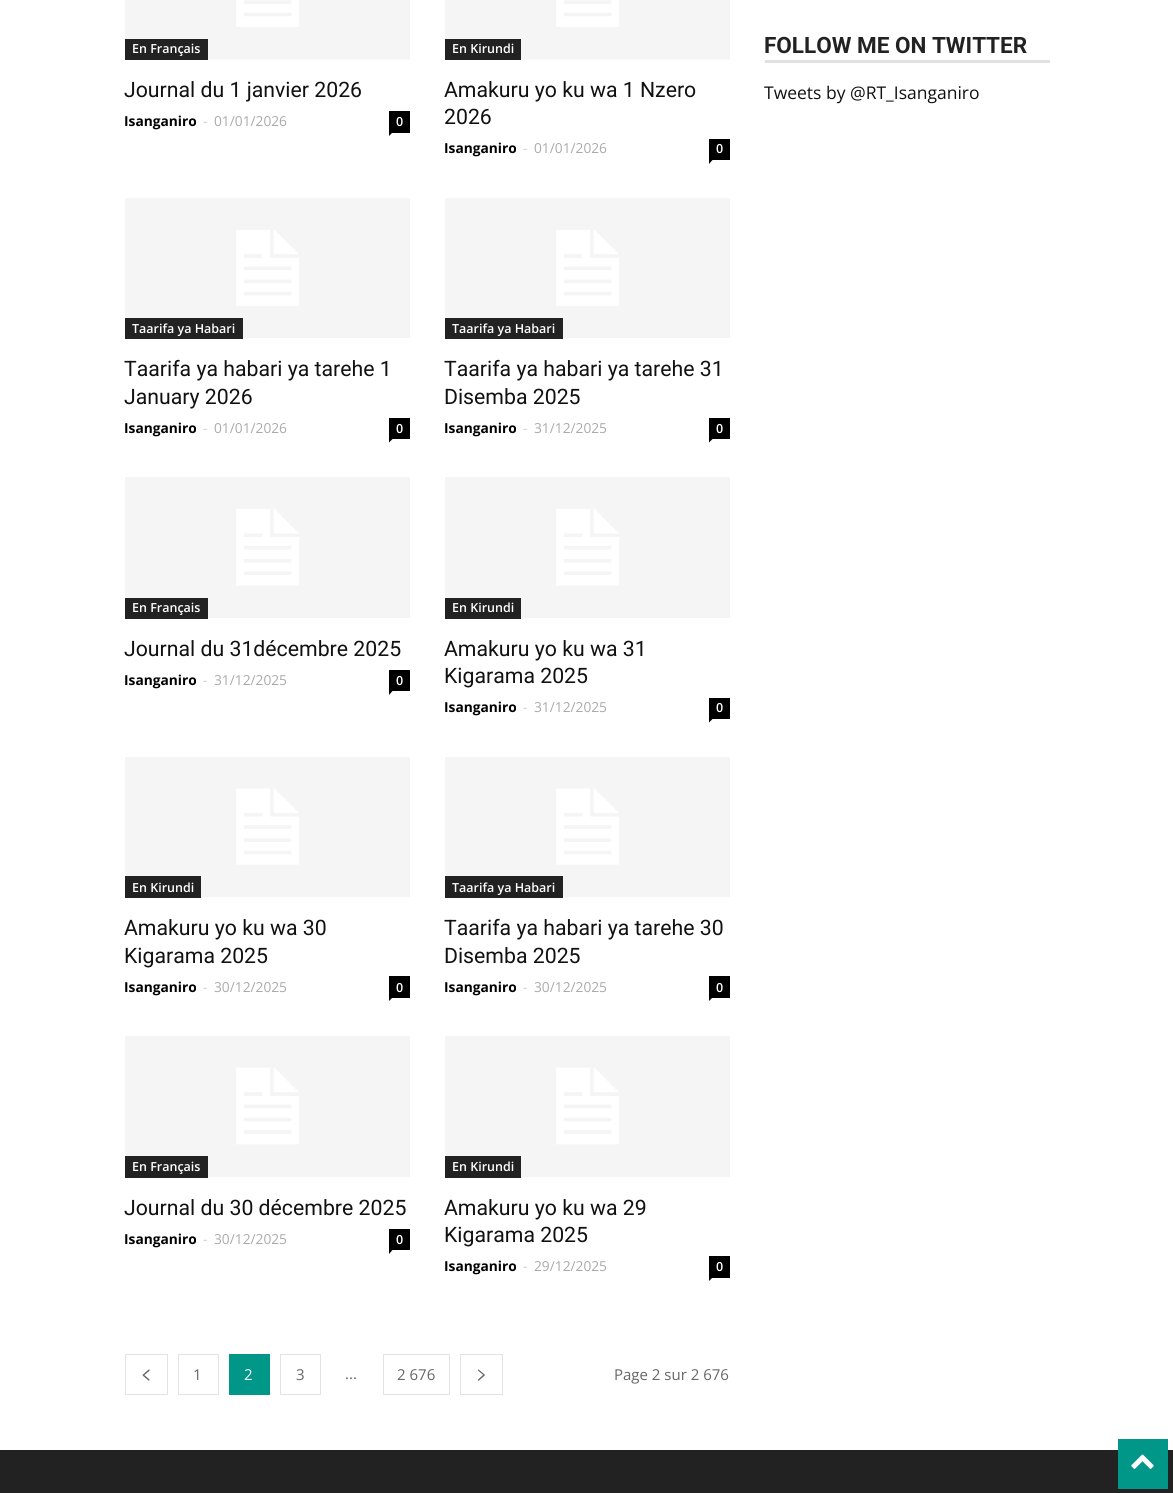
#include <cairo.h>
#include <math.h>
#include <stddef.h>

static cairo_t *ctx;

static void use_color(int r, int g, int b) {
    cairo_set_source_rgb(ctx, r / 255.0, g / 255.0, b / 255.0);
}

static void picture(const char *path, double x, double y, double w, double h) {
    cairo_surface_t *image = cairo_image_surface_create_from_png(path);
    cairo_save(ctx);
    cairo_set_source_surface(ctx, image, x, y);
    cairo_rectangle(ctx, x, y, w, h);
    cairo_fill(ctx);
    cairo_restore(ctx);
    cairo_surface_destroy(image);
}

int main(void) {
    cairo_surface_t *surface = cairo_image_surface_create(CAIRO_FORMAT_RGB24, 1173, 1493);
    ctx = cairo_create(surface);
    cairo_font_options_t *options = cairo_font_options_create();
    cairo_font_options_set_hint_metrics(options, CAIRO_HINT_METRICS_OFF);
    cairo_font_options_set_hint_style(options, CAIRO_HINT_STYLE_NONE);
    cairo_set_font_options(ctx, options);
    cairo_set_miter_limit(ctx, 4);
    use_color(255, 255, 255);
    cairo_paint(ctx);
    picture("img1.png", 125, 0, 285, 60);
    use_color(34, 34, 34);
    cairo_rectangle(ctx, 125, 39, 83, 21);
    cairo_fill(ctx);
    cairo_select_font_face(ctx, "Open Sans SemiBold", CAIRO_FONT_SLANT_NORMAL, CAIRO_FONT_WEIGHT_NORMAL);
    cairo_set_font_size(ctx, 12.5);
    use_color(255, 255, 255);
    cairo_move_to(ctx, 132, 53);
    cairo_show_text(ctx, "En Français");
    cairo_select_font_face(ctx, "Roboto", CAIRO_FONT_SLANT_NORMAL, CAIRO_FONT_WEIGHT_NORMAL);
    cairo_set_font_size(ctx, 21.25);
    use_color(17, 17, 17);
    cairo_move_to(ctx, 124, 97);
    cairo_show_text(ctx, "Journal du 1 janvier 2026");
    cairo_select_font_face(ctx, "Open Sans", CAIRO_FONT_SLANT_NORMAL, CAIRO_FONT_WEIGHT_BOLD);
    cairo_set_font_size(ctx, 13.75);
    use_color(0, 0, 0);
    cairo_move_to(ctx, 124, 126);
    cairo_show_text(ctx, "Isanganiro");
    cairo_select_font_face(ctx, "Open Sans", CAIRO_FONT_SLANT_NORMAL, CAIRO_FONT_WEIGHT_NORMAL);
    use_color(204, 204, 204);
    cairo_move_to(ctx, 203, 126);
    cairo_show_text(ctx, "-");
    use_color(170, 170, 170);
    cairo_move_to(ctx, 214, 126);
    cairo_show_text(ctx, "01/01/2026");
    use_color(0, 0, 0);
    cairo_rectangle(ctx, 389, 111, 21, 22);
    cairo_fill(ctx);
    cairo_select_font_face(ctx, "Open Sans SemiBold", CAIRO_FONT_SLANT_NORMAL, CAIRO_FONT_WEIGHT_NORMAL);
    cairo_set_font_size(ctx, 12.5);
    use_color(255, 255, 255);
    cairo_move_to(ctx, 396, 126);
    cairo_show_text(ctx, "0");
    use_color(0, 0, 0);
    cairo_new_path(ctx);
    cairo_move_to(ctx, 389, 132.5);
    cairo_line_to(ctx, 392.5, 132.5);
    cairo_line_to(ctx, 389, 136);
    cairo_close_path(ctx);
    cairo_fill(ctx);
    picture("img1.png", 445, 0, 285, 60);
    use_color(34, 34, 34);
    cairo_rectangle(ctx, 445, 39, 76, 21);
    cairo_fill(ctx);
    use_color(255, 255, 255);
    cairo_move_to(ctx, 452, 53);
    cairo_show_text(ctx, "En Kirundi");
    cairo_select_font_face(ctx, "Roboto", CAIRO_FONT_SLANT_NORMAL, CAIRO_FONT_WEIGHT_NORMAL);
    cairo_set_font_size(ctx, 21.25);
    use_color(17, 17, 17);
    cairo_move_to(ctx, 444, 97);
    cairo_show_text(ctx, "Amakuru yo ku wa 1 Nzero");
    cairo_move_to(ctx, 444, 124);
    cairo_show_text(ctx, "2026");
    cairo_select_font_face(ctx, "Open Sans", CAIRO_FONT_SLANT_NORMAL, CAIRO_FONT_WEIGHT_BOLD);
    cairo_set_font_size(ctx, 13.75);
    use_color(0, 0, 0);
    cairo_move_to(ctx, 444, 153);
    cairo_show_text(ctx, "Isanganiro");
    cairo_select_font_face(ctx, "Open Sans", CAIRO_FONT_SLANT_NORMAL, CAIRO_FONT_WEIGHT_NORMAL);
    use_color(204, 204, 204);
    cairo_move_to(ctx, 523, 153);
    cairo_show_text(ctx, "-");
    use_color(170, 170, 170);
    cairo_move_to(ctx, 534, 153);
    cairo_show_text(ctx, "01/01/2026");
    use_color(0, 0, 0);
    cairo_rectangle(ctx, 709, 139, 21, 21);
    cairo_fill(ctx);
    cairo_select_font_face(ctx, "Open Sans SemiBold", CAIRO_FONT_SLANT_NORMAL, CAIRO_FONT_WEIGHT_NORMAL);
    cairo_set_font_size(ctx, 12.5);
    use_color(255, 255, 255);
    cairo_move_to(ctx, 716, 153);
    cairo_show_text(ctx, "0");
    use_color(0, 0, 0);
    cairo_new_path(ctx);
    cairo_move_to(ctx, 709, 160);
    cairo_line_to(ctx, 712.5, 160);
    cairo_line_to(ctx, 709, 164);
    cairo_close_path(ctx);
    cairo_fill(ctx);
    picture("img2.png", 125, 198, 285, 140);
    use_color(34, 34, 34);
    cairo_rectangle(ctx, 125, 318, 118, 21);
    cairo_fill(ctx);
    use_color(255, 255, 255);
    cairo_move_to(ctx, 132, 333);
    cairo_show_text(ctx, "Taarifa ya Habari");
    cairo_select_font_face(ctx, "Roboto", CAIRO_FONT_SLANT_NORMAL, CAIRO_FONT_WEIGHT_NORMAL);
    cairo_set_font_size(ctx, 21.25);
    use_color(17, 17, 17);
    cairo_move_to(ctx, 124, 376);
    cairo_show_text(ctx, "Taarifa ya habari ya tarehe 1");
    cairo_move_to(ctx, 124, 404);
    cairo_show_text(ctx, "January 2026");
    cairo_select_font_face(ctx, "Open Sans", CAIRO_FONT_SLANT_NORMAL, CAIRO_FONT_WEIGHT_BOLD);
    cairo_set_font_size(ctx, 13.75);
    use_color(0, 0, 0);
    cairo_move_to(ctx, 124, 433);
    cairo_show_text(ctx, "Isanganiro");
    cairo_select_font_face(ctx, "Open Sans", CAIRO_FONT_SLANT_NORMAL, CAIRO_FONT_WEIGHT_NORMAL);
    use_color(204, 204, 204);
    cairo_move_to(ctx, 203, 433);
    cairo_show_text(ctx, "-");
    use_color(170, 170, 170);
    cairo_move_to(ctx, 214, 433);
    cairo_show_text(ctx, "01/01/2026");
    use_color(0, 0, 0);
    cairo_rectangle(ctx, 389, 418, 21, 21);
    cairo_fill(ctx);
    cairo_select_font_face(ctx, "Open Sans SemiBold", CAIRO_FONT_SLANT_NORMAL, CAIRO_FONT_WEIGHT_NORMAL);
    cairo_set_font_size(ctx, 12.5);
    use_color(255, 255, 255);
    cairo_move_to(ctx, 396, 433);
    cairo_show_text(ctx, "0");
    use_color(0, 0, 0);
    cairo_new_path(ctx);
    cairo_move_to(ctx, 389, 439);
    cairo_line_to(ctx, 392.5, 439);
    cairo_line_to(ctx, 389, 442.5);
    cairo_close_path(ctx);
    cairo_fill(ctx);
    picture("img2.png", 445, 198, 285, 140);
    use_color(34, 34, 34);
    cairo_rectangle(ctx, 445, 318, 118, 21);
    cairo_fill(ctx);
    use_color(255, 255, 255);
    cairo_move_to(ctx, 452, 333);
    cairo_show_text(ctx, "Taarifa ya Habari");
    cairo_select_font_face(ctx, "Roboto", CAIRO_FONT_SLANT_NORMAL, CAIRO_FONT_WEIGHT_NORMAL);
    cairo_set_font_size(ctx, 21.25);
    use_color(17, 17, 17);
    cairo_move_to(ctx, 444, 376);
    cairo_show_text(ctx, "Taarifa ya habari ya tarehe 31");
    cairo_move_to(ctx, 444, 404);
    cairo_show_text(ctx, "Disemba 2025");
    cairo_select_font_face(ctx, "Open Sans", CAIRO_FONT_SLANT_NORMAL, CAIRO_FONT_WEIGHT_BOLD);
    cairo_set_font_size(ctx, 13.75);
    use_color(0, 0, 0);
    cairo_move_to(ctx, 444, 433);
    cairo_show_text(ctx, "Isanganiro");
    cairo_select_font_face(ctx, "Open Sans", CAIRO_FONT_SLANT_NORMAL, CAIRO_FONT_WEIGHT_NORMAL);
    use_color(204, 204, 204);
    cairo_move_to(ctx, 523, 433);
    cairo_show_text(ctx, "-");
    use_color(170, 170, 170);
    cairo_move_to(ctx, 534, 433);
    cairo_show_text(ctx, "31/12/2025");
    use_color(0, 0, 0);
    cairo_rectangle(ctx, 709, 418, 21, 21);
    cairo_fill(ctx);
    cairo_select_font_face(ctx, "Open Sans SemiBold", CAIRO_FONT_SLANT_NORMAL, CAIRO_FONT_WEIGHT_NORMAL);
    cairo_set_font_size(ctx, 12.5);
    use_color(255, 255, 255);
    cairo_move_to(ctx, 716, 433);
    cairo_show_text(ctx, "0");
    use_color(0, 0, 0);
    cairo_new_path(ctx);
    cairo_move_to(ctx, 709, 439);
    cairo_line_to(ctx, 712.5, 439);
    cairo_line_to(ctx, 709, 442.5);
    cairo_close_path(ctx);
    cairo_fill(ctx);
    picture("img3.png", 125, 477, 285, 141);
    use_color(34, 34, 34);
    cairo_rectangle(ctx, 125, 598, 83, 21);
    cairo_fill(ctx);
    use_color(255, 255, 255);
    cairo_move_to(ctx, 132, 612);
    cairo_show_text(ctx, "En Français");
    cairo_select_font_face(ctx, "Roboto", CAIRO_FONT_SLANT_NORMAL, CAIRO_FONT_WEIGHT_NORMAL);
    cairo_set_font_size(ctx, 21.25);
    use_color(17, 17, 17);
    cairo_move_to(ctx, 124, 656);
    cairo_show_text(ctx, "Journal du 31décembre 2025");
    cairo_select_font_face(ctx, "Open Sans", CAIRO_FONT_SLANT_NORMAL, CAIRO_FONT_WEIGHT_BOLD);
    cairo_set_font_size(ctx, 13.75);
    use_color(0, 0, 0);
    cairo_move_to(ctx, 124, 685);
    cairo_show_text(ctx, "Isanganiro");
    cairo_select_font_face(ctx, "Open Sans", CAIRO_FONT_SLANT_NORMAL, CAIRO_FONT_WEIGHT_NORMAL);
    use_color(204, 204, 204);
    cairo_move_to(ctx, 203, 685);
    cairo_show_text(ctx, "-");
    use_color(170, 170, 170);
    cairo_move_to(ctx, 214, 685);
    cairo_show_text(ctx, "31/12/2025");
    use_color(0, 0, 0);
    cairo_rectangle(ctx, 389, 670, 21, 21);
    cairo_fill(ctx);
    cairo_select_font_face(ctx, "Open Sans SemiBold", CAIRO_FONT_SLANT_NORMAL, CAIRO_FONT_WEIGHT_NORMAL);
    cairo_set_font_size(ctx, 12.5);
    use_color(255, 255, 255);
    cairo_move_to(ctx, 396, 685);
    cairo_show_text(ctx, "0");
    use_color(0, 0, 0);
    cairo_new_path(ctx);
    cairo_move_to(ctx, 389, 691);
    cairo_line_to(ctx, 392.5, 691);
    cairo_line_to(ctx, 389, 695);
    cairo_close_path(ctx);
    cairo_fill(ctx);
    picture("img3.png", 445, 477, 285, 141);
    use_color(34, 34, 34);
    cairo_rectangle(ctx, 445, 598, 76, 21);
    cairo_fill(ctx);
    use_color(255, 255, 255);
    cairo_move_to(ctx, 452, 612);
    cairo_show_text(ctx, "En Kirundi");
    cairo_select_font_face(ctx, "Roboto", CAIRO_FONT_SLANT_NORMAL, CAIRO_FONT_WEIGHT_NORMAL);
    cairo_set_font_size(ctx, 21.25);
    use_color(17, 17, 17);
    cairo_move_to(ctx, 444, 656);
    cairo_show_text(ctx, "Amakuru yo ku wa 31");
    cairo_move_to(ctx, 444, 683);
    cairo_show_text(ctx, "Kigarama 2025");
    cairo_select_font_face(ctx, "Open Sans", CAIRO_FONT_SLANT_NORMAL, CAIRO_FONT_WEIGHT_BOLD);
    cairo_set_font_size(ctx, 13.75);
    use_color(0, 0, 0);
    cairo_move_to(ctx, 444, 712);
    cairo_show_text(ctx, "Isanganiro");
    cairo_select_font_face(ctx, "Open Sans", CAIRO_FONT_SLANT_NORMAL, CAIRO_FONT_WEIGHT_NORMAL);
    use_color(204, 204, 204);
    cairo_move_to(ctx, 523, 712);
    cairo_show_text(ctx, "-");
    use_color(170, 170, 170);
    cairo_move_to(ctx, 534, 712);
    cairo_show_text(ctx, "31/12/2025");
    use_color(0, 0, 0);
    cairo_rectangle(ctx, 709, 698, 21, 21);
    cairo_fill(ctx);
    cairo_select_font_face(ctx, "Open Sans SemiBold", CAIRO_FONT_SLANT_NORMAL, CAIRO_FONT_WEIGHT_NORMAL);
    cairo_set_font_size(ctx, 12.5);
    use_color(255, 255, 255);
    cairo_move_to(ctx, 716, 712);
    cairo_show_text(ctx, "0");
    use_color(0, 0, 0);
    cairo_new_path(ctx);
    cairo_move_to(ctx, 709, 719);
    cairo_line_to(ctx, 712.5, 719);
    cairo_line_to(ctx, 709, 722.5);
    cairo_close_path(ctx);
    cairo_fill(ctx);
    picture("img4.png", 125, 757, 285, 140);
    use_color(34, 34, 34);
    cairo_rectangle(ctx, 125, 876, 76, 22);
    cairo_fill(ctx);
    use_color(255, 255, 255);
    cairo_move_to(ctx, 132, 892);
    cairo_show_text(ctx, "En Kirundi");
    cairo_select_font_face(ctx, "Roboto", CAIRO_FONT_SLANT_NORMAL, CAIRO_FONT_WEIGHT_NORMAL);
    cairo_set_font_size(ctx, 21.25);
    use_color(17, 17, 17);
    cairo_move_to(ctx, 124, 935);
    cairo_show_text(ctx, "Amakuru yo ku wa 30");
    cairo_move_to(ctx, 124, 963);
    cairo_show_text(ctx, "Kigarama 2025");
    cairo_select_font_face(ctx, "Open Sans", CAIRO_FONT_SLANT_NORMAL, CAIRO_FONT_WEIGHT_BOLD);
    cairo_set_font_size(ctx, 13.75);
    use_color(0, 0, 0);
    cairo_move_to(ctx, 124, 992);
    cairo_show_text(ctx, "Isanganiro");
    cairo_select_font_face(ctx, "Open Sans", CAIRO_FONT_SLANT_NORMAL, CAIRO_FONT_WEIGHT_NORMAL);
    use_color(204, 204, 204);
    cairo_move_to(ctx, 203, 992);
    cairo_show_text(ctx, "-");
    use_color(170, 170, 170);
    cairo_move_to(ctx, 214, 992);
    cairo_show_text(ctx, "30/12/2025");
    use_color(0, 0, 0);
    cairo_rectangle(ctx, 389, 976, 21, 22);
    cairo_fill(ctx);
    cairo_select_font_face(ctx, "Open Sans SemiBold", CAIRO_FONT_SLANT_NORMAL, CAIRO_FONT_WEIGHT_NORMAL);
    cairo_set_font_size(ctx, 12.5);
    use_color(255, 255, 255);
    cairo_move_to(ctx, 396, 992);
    cairo_show_text(ctx, "0");
    use_color(0, 0, 0);
    cairo_new_path(ctx);
    cairo_move_to(ctx, 389, 997.5);
    cairo_line_to(ctx, 392.5, 997.5);
    cairo_line_to(ctx, 389, 1001);
    cairo_close_path(ctx);
    cairo_fill(ctx);
    picture("img4.png", 445, 757, 285, 140);
    use_color(34, 34, 34);
    cairo_rectangle(ctx, 445, 876, 118, 22);
    cairo_fill(ctx);
    use_color(255, 255, 255);
    cairo_move_to(ctx, 452, 892);
    cairo_show_text(ctx, "Taarifa ya Habari");
    cairo_select_font_face(ctx, "Roboto", CAIRO_FONT_SLANT_NORMAL, CAIRO_FONT_WEIGHT_NORMAL);
    cairo_set_font_size(ctx, 21.25);
    use_color(17, 17, 17);
    cairo_move_to(ctx, 444, 935);
    cairo_show_text(ctx, "Taarifa ya habari ya tarehe 30");
    cairo_move_to(ctx, 444, 963);
    cairo_show_text(ctx, "Disemba 2025");
    cairo_select_font_face(ctx, "Open Sans", CAIRO_FONT_SLANT_NORMAL, CAIRO_FONT_WEIGHT_BOLD);
    cairo_set_font_size(ctx, 13.75);
    use_color(0, 0, 0);
    cairo_move_to(ctx, 444, 992);
    cairo_show_text(ctx, "Isanganiro");
    cairo_select_font_face(ctx, "Open Sans", CAIRO_FONT_SLANT_NORMAL, CAIRO_FONT_WEIGHT_NORMAL);
    use_color(204, 204, 204);
    cairo_move_to(ctx, 523, 992);
    cairo_show_text(ctx, "-");
    use_color(170, 170, 170);
    cairo_move_to(ctx, 534, 992);
    cairo_show_text(ctx, "30/12/2025");
    use_color(0, 0, 0);
    cairo_rectangle(ctx, 709, 976, 21, 22);
    cairo_fill(ctx);
    cairo_select_font_face(ctx, "Open Sans SemiBold", CAIRO_FONT_SLANT_NORMAL, CAIRO_FONT_WEIGHT_NORMAL);
    cairo_set_font_size(ctx, 12.5);
    use_color(255, 255, 255);
    cairo_move_to(ctx, 716, 992);
    cairo_show_text(ctx, "0");
    use_color(0, 0, 0);
    cairo_new_path(ctx);
    cairo_move_to(ctx, 709, 997.5);
    cairo_line_to(ctx, 712.5, 997.5);
    cairo_line_to(ctx, 709, 1001);
    cairo_close_path(ctx);
    cairo_fill(ctx);
    picture("img5.png", 125, 1036, 285, 141);
    use_color(34, 34, 34);
    cairo_rectangle(ctx, 125, 1156, 83, 22);
    cairo_fill(ctx);
    use_color(255, 255, 255);
    cairo_move_to(ctx, 132, 1171);
    cairo_show_text(ctx, "En Français");
    cairo_select_font_face(ctx, "Roboto", CAIRO_FONT_SLANT_NORMAL, CAIRO_FONT_WEIGHT_NORMAL);
    cairo_set_font_size(ctx, 21.25);
    use_color(17, 17, 17);
    cairo_move_to(ctx, 124, 1215);
    cairo_show_text(ctx, "Journal du 30 décembre 2025");
    cairo_select_font_face(ctx, "Open Sans", CAIRO_FONT_SLANT_NORMAL, CAIRO_FONT_WEIGHT_BOLD);
    cairo_set_font_size(ctx, 13.75);
    use_color(0, 0, 0);
    cairo_move_to(ctx, 124, 1244);
    cairo_show_text(ctx, "Isanganiro");
    cairo_select_font_face(ctx, "Open Sans", CAIRO_FONT_SLANT_NORMAL, CAIRO_FONT_WEIGHT_NORMAL);
    use_color(204, 204, 204);
    cairo_move_to(ctx, 203, 1244);
    cairo_show_text(ctx, "-");
    use_color(170, 170, 170);
    cairo_move_to(ctx, 214, 1244);
    cairo_show_text(ctx, "30/12/2025");
    use_color(0, 0, 0);
    cairo_rectangle(ctx, 389, 1229, 21, 21);
    cairo_fill(ctx);
    cairo_select_font_face(ctx, "Open Sans SemiBold", CAIRO_FONT_SLANT_NORMAL, CAIRO_FONT_WEIGHT_NORMAL);
    cairo_set_font_size(ctx, 12.5);
    use_color(255, 255, 255);
    cairo_move_to(ctx, 396, 1244);
    cairo_show_text(ctx, "0");
    use_color(0, 0, 0);
    cairo_new_path(ctx);
    cairo_move_to(ctx, 389, 1250);
    cairo_line_to(ctx, 392.5, 1250);
    cairo_line_to(ctx, 389, 1254);
    cairo_close_path(ctx);
    cairo_fill(ctx);
    picture("img5.png", 445, 1036, 285, 141);
    use_color(34, 34, 34);
    cairo_rectangle(ctx, 445, 1156, 76, 22);
    cairo_fill(ctx);
    use_color(255, 255, 255);
    cairo_move_to(ctx, 452, 1171);
    cairo_show_text(ctx, "En Kirundi");
    cairo_select_font_face(ctx, "Roboto", CAIRO_FONT_SLANT_NORMAL, CAIRO_FONT_WEIGHT_NORMAL);
    cairo_set_font_size(ctx, 21.25);
    use_color(17, 17, 17);
    cairo_move_to(ctx, 444, 1215);
    cairo_show_text(ctx, "Amakuru yo ku wa 29");
    cairo_move_to(ctx, 444, 1242);
    cairo_show_text(ctx, "Kigarama 2025");
    cairo_select_font_face(ctx, "Open Sans", CAIRO_FONT_SLANT_NORMAL, CAIRO_FONT_WEIGHT_BOLD);
    cairo_set_font_size(ctx, 13.75);
    use_color(0, 0, 0);
    cairo_move_to(ctx, 444, 1271);
    cairo_show_text(ctx, "Isanganiro");
    cairo_select_font_face(ctx, "Open Sans", CAIRO_FONT_SLANT_NORMAL, CAIRO_FONT_WEIGHT_NORMAL);
    use_color(204, 204, 204);
    cairo_move_to(ctx, 523, 1271);
    cairo_show_text(ctx, "-");
    use_color(170, 170, 170);
    cairo_move_to(ctx, 534, 1271);
    cairo_show_text(ctx, "29/12/2025");
    use_color(0, 0, 0);
    cairo_rectangle(ctx, 709, 1256, 21, 22);
    cairo_fill(ctx);
    cairo_select_font_face(ctx, "Open Sans SemiBold", CAIRO_FONT_SLANT_NORMAL, CAIRO_FONT_WEIGHT_NORMAL);
    cairo_set_font_size(ctx, 12.5);
    use_color(255, 255, 255);
    cairo_move_to(ctx, 716, 1271);
    cairo_show_text(ctx, "0");
    use_color(0, 0, 0);
    cairo_new_path(ctx);
    cairo_move_to(ctx, 709, 1277.5);
    cairo_line_to(ctx, 712.5, 1277.5);
    cairo_line_to(ctx, 709, 1281);
    cairo_close_path(ctx);
    cairo_fill(ctx);
    cairo_rectangle(ctx, 125.5, 1354.5, 42, 40);
    use_color(227, 227, 227);
    cairo_set_line_width(ctx, 1);
    cairo_stroke(ctx);
    picture("img6.png", 142, 1369, 8, 12);
    cairo_rectangle(ctx, 178.5, 1354.5, 40, 40);
    cairo_stroke(ctx);
    cairo_select_font_face(ctx, "Open Sans", CAIRO_FONT_SLANT_NORMAL, CAIRO_FONT_WEIGHT_NORMAL);
    cairo_set_font_size(ctx, 15);
    use_color(102, 102, 102);
    cairo_move_to(ctx, 193, 1380);
    cairo_show_text(ctx, "1");
    use_color(0, 150, 136);
    cairo_rectangle(ctx, 229, 1354, 41, 41);
    cairo_fill(ctx);
    use_color(255, 255, 255);
    cairo_move_to(ctx, 244, 1380);
    cairo_show_text(ctx, "2");
    cairo_rectangle(ctx, 280.5, 1354.5, 40, 40);
    use_color(227, 227, 227);
    cairo_stroke(ctx);
    use_color(102, 102, 102);
    cairo_move_to(ctx, 296, 1380);
    cairo_show_text(ctx, "3");
    cairo_move_to(ctx, 345, 1379);
    cairo_show_text(ctx, "...");
    cairo_rectangle(ctx, 383.5, 1354.5, 66, 40);
    use_color(227, 227, 227);
    cairo_stroke(ctx);
    use_color(102, 102, 102);
    cairo_move_to(ctx, 397, 1380);
    cairo_show_text(ctx, "2 676");
    cairo_rectangle(ctx, 460.5, 1354.5, 42, 40);
    use_color(227, 227, 227);
    cairo_stroke(ctx);
    picture("img7.png", 477, 1369, 8, 12);
    use_color(102, 102, 102);
    cairo_move_to(ctx, 614, 1380);
    cairo_show_text(ctx, "Page 2 sur 2 676");
    use_color(226, 224, 225);
    cairo_rectangle(ctx, 765, 60, 285, 3);
    cairo_fill(ctx);
    cairo_select_font_face(ctx, "Roboto", CAIRO_FONT_SLANT_NORMAL, CAIRO_FONT_WEIGHT_BOLD);
    cairo_set_font_size(ctx, 22.5);
    use_color(34, 34, 34);
    cairo_move_to(ctx, 764, 53);
    cairo_show_text(ctx, "FOLLOW ME ON TWITTER");
    cairo_select_font_face(ctx, "Open Sans", CAIRO_FONT_SLANT_NORMAL, CAIRO_FONT_WEIGHT_NORMAL);
    cairo_set_font_size(ctx, 17.5);
    use_color(17, 17, 17);
    cairo_move_to(ctx, 764, 99);
    cairo_show_text(ctx, "Tweets by @RT_Isanganiro");
    use_color(34, 34, 34);
    cairo_rectangle(ctx, 0, 1450, 1173, 43);
    cairo_fill(ctx);
    use_color(0, 150, 136);
    cairo_rectangle(ctx, 1118, 1439, 50, 50);
    cairo_fill(ctx);
    picture("img8.png", 1131, 1454, 23, 15);
    cairo_surface_write_to_png(surface, "result.png");
    cairo_font_options_destroy(options);
    cairo_destroy(ctx);
    cairo_surface_destroy(surface);
    return 0;
}
